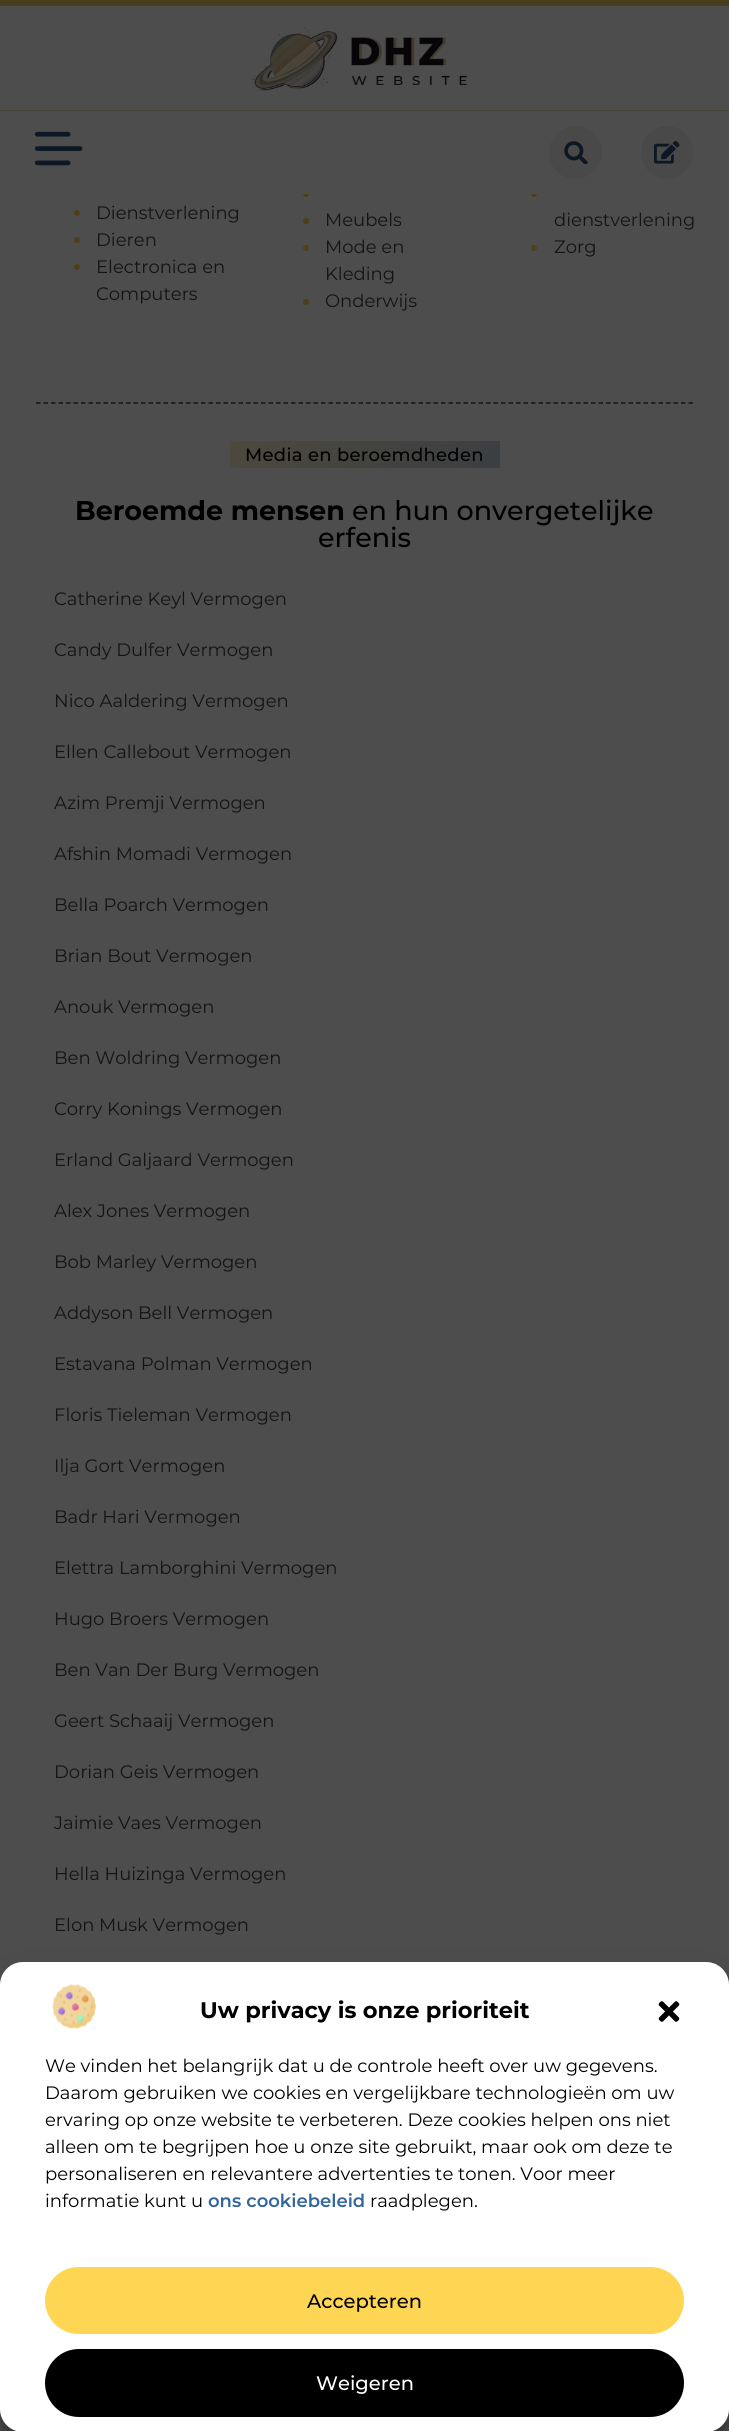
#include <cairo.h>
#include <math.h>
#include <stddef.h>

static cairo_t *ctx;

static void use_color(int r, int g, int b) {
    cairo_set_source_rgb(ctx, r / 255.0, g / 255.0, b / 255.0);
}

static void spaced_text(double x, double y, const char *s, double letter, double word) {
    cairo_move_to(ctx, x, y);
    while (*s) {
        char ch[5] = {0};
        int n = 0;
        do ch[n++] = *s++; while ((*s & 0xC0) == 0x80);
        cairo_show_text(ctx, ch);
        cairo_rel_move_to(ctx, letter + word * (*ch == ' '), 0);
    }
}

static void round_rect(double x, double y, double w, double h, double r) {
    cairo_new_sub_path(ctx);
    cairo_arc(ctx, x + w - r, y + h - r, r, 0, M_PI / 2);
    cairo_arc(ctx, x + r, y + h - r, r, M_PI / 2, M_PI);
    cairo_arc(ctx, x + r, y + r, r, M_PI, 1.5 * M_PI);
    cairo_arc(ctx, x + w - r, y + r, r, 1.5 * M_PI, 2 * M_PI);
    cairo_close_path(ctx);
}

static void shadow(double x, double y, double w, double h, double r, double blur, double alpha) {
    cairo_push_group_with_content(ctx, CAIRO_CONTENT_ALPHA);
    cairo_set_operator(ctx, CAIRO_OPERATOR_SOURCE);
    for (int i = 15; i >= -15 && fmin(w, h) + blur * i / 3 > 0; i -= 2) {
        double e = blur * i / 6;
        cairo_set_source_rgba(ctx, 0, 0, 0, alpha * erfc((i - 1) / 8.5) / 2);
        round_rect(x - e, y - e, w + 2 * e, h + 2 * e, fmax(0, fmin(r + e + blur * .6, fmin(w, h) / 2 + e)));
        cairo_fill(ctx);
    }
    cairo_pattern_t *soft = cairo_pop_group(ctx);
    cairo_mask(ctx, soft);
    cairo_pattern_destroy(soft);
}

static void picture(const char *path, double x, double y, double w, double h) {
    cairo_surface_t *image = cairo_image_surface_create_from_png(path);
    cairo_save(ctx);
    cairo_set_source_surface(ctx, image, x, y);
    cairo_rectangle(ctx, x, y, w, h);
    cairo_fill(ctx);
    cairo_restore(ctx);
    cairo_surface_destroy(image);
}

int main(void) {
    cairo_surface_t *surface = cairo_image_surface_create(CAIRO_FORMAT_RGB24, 729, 2431);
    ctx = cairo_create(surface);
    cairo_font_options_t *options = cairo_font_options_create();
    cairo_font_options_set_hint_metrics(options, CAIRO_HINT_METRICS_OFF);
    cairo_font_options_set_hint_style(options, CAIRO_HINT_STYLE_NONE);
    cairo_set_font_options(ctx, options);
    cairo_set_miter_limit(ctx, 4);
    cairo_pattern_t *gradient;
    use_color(77, 77, 77);
    cairo_paint(ctx);
    use_color(72, 62, 28);
    cairo_rectangle(ctx, 0, 0, 729, 6);
    cairo_fill(ctx);
    cairo_set_source_rgba(ctx, 0.259, 0.231, 0.157, 0.52);
    cairo_rectangle(ctx, 0, 110, 729, 1);
    cairo_fill(ctx);
    picture("img1.png", 247, 27, 221, 64);
    use_color(77, 64, 25);
    cairo_arc(ctx, 306, 194, 3, 0, 2 * M_PI);
    cairo_fill(ctx);
    cairo_arc(ctx, 534, 194, 3, 0, 2 * M_PI);
    cairo_fill(ctx);
    use_color(77, 77, 77);
    cairo_rectangle(ctx, 303, 191, 234, 3);
    cairo_fill(ctx);
    picture("img2.png", 35, 131, 48, 35);
    use_color(73, 73, 73);
    cairo_arc(ctx, 575.5, 152.5, 26.5, 0, 2 * M_PI);
    cairo_fill(ctx);
    picture("img3.png", 564, 141, 24, 23);
    round_rect(641, 126, 52, 53, 26);
    cairo_fill(ctx);
    picture("img4.png", 654, 140, 26, 24);
    use_color(77, 64, 25);
    cairo_arc(ctx, 77, 213, 3, 0, 2 * M_PI);
    cairo_fill(ctx);
    cairo_select_font_face(ctx, "Montserrat", CAIRO_FONT_SLANT_NORMAL, CAIRO_FONT_WEIGHT_NORMAL);
    cairo_set_font_size(ctx, 18);
    use_color(20, 20, 20);
    cairo_move_to(ctx, 96, 219);
    cairo_show_text(ctx, "Dienstverlening");
    use_color(77, 64, 25);
    cairo_new_path(ctx);
    cairo_arc(ctx, 306, 221, 3, 0, 2 * M_PI);
    cairo_fill(ctx);
    use_color(20, 20, 20);
    cairo_move_to(ctx, 325, 226);
    cairo_show_text(ctx, "Meubels");
    cairo_move_to(ctx, 554, 226);
    cairo_show_text(ctx, "dienstverlening");
    use_color(77, 64, 25);
    cairo_new_path(ctx);
    cairo_arc(ctx, 77, 240, 3, 0, 2 * M_PI);
    cairo_fill(ctx);
    use_color(20, 20, 20);
    cairo_move_to(ctx, 96, 246);
    cairo_show_text(ctx, "Dieren");
    use_color(77, 64, 25);
    cairo_new_path(ctx);
    cairo_arc(ctx, 306, 248, 3, 0, 2 * M_PI);
    cairo_fill(ctx);
    use_color(20, 20, 20);
    cairo_move_to(ctx, 325, 253);
    cairo_show_text(ctx, "Mode en");
    cairo_move_to(ctx, 325, 280);
    cairo_show_text(ctx, "Kleding");
    use_color(77, 64, 25);
    cairo_new_path(ctx);
    cairo_arc(ctx, 534, 248, 3, 0, 2 * M_PI);
    cairo_fill(ctx);
    use_color(20, 20, 20);
    cairo_move_to(ctx, 554, 253);
    cairo_show_text(ctx, "Zorg");
    use_color(77, 64, 25);
    cairo_new_path(ctx);
    cairo_arc(ctx, 77, 267, 3, 0, 2 * M_PI);
    cairo_fill(ctx);
    use_color(20, 20, 20);
    cairo_move_to(ctx, 96, 273);
    cairo_show_text(ctx, "Electronica en");
    cairo_move_to(ctx, 96, 300);
    cairo_show_text(ctx, "Computers");
    use_color(77, 64, 25);
    cairo_new_path(ctx);
    cairo_arc(ctx, 306, 302, 3, 0, 2 * M_PI);
    cairo_fill(ctx);
    use_color(20, 20, 20);
    cairo_move_to(ctx, 325, 307);
    cairo_show_text(ctx, "Onderwijs");
    cairo_new_path(ctx);
    cairo_move_to(ctx, 36, 403);
    cairo_line_to(ctx, 693, 403);
    cairo_set_line_width(ctx, 1.5);
    cairo_set_dash(ctx, (double[]){4.5, 3}, 2, 0);
    cairo_stroke(ctx);
    gradient = cairo_pattern_create_linear(290, 380, 439, 529);
    cairo_pattern_add_color_stop_rgba(gradient, 0, 0.302, 0.286, 0.239, 1);
    cairo_pattern_add_color_stop_rgba(gradient, 1, 0.231, 0.243, 0.259, 1);
    cairo_set_source(ctx, gradient);
    cairo_pattern_destroy(gradient);
    cairo_rectangle(ctx, 230, 441, 270, 27);
    cairo_fill(ctx);
    cairo_select_font_face(ctx, "Montserrat Medium", CAIRO_FONT_SLANT_NORMAL, CAIRO_FONT_WEIGHT_NORMAL);
    use_color(0, 0, 0);
    spaced_text(245, 461, "Media en beroemdheden", 0.3, 0);
    cairo_select_font_face(ctx, "Montserrat", CAIRO_FONT_SLANT_NORMAL, CAIRO_FONT_WEIGHT_BOLD);
    cairo_set_font_size(ctx, 27);
    cairo_move_to(ctx, 75, 520);
    cairo_show_text(ctx, "Beroemde mensen");
    cairo_select_font_face(ctx, "Montserrat Medium", CAIRO_FONT_SLANT_NORMAL, CAIRO_FONT_WEIGHT_NORMAL);
    cairo_move_to(ctx, 352, 520);
    cairo_show_text(ctx, "en hun onvergetelijke");
    cairo_move_to(ctx, 318, 547);
    cairo_show_text(ctx, "erfenis");
    cairo_select_font_face(ctx, "Montserrat", CAIRO_FONT_SLANT_NORMAL, CAIRO_FONT_WEIGHT_NORMAL);
    cairo_set_font_size(ctx, 18);
    use_color(20, 20, 20);
    cairo_move_to(ctx, 54, 605);
    cairo_show_text(ctx, "Catherine Keyl Vermogen");
    cairo_move_to(ctx, 54, 656);
    cairo_show_text(ctx, "Candy Dulfer Vermogen");
    cairo_move_to(ctx, 54, 707);
    cairo_show_text(ctx, "Nico Aaldering Vermogen");
    cairo_move_to(ctx, 54, 758);
    cairo_show_text(ctx, "Ellen Callebout Vermogen");
    cairo_move_to(ctx, 54, 809);
    cairo_show_text(ctx, "Azim Premji Vermogen");
    cairo_move_to(ctx, 54, 860);
    cairo_show_text(ctx, "Afshin Momadi Vermogen");
    cairo_move_to(ctx, 54, 911);
    cairo_show_text(ctx, "Bella Poarch Vermogen");
    cairo_move_to(ctx, 54, 962);
    cairo_show_text(ctx, "Brian Bout Vermogen");
    cairo_move_to(ctx, 54, 1013);
    cairo_show_text(ctx, "Anouk Vermogen");
    cairo_move_to(ctx, 54, 1064);
    cairo_show_text(ctx, "Ben Woldring Vermogen");
    cairo_move_to(ctx, 54, 1115);
    cairo_show_text(ctx, "Corry Konings Vermogen");
    cairo_move_to(ctx, 54, 1166);
    cairo_show_text(ctx, "Erland Galjaard Vermogen");
    cairo_move_to(ctx, 54, 1217);
    cairo_show_text(ctx, "Alex Jones Vermogen");
    cairo_move_to(ctx, 54, 1268);
    cairo_show_text(ctx, "Bob Marley Vermogen");
    cairo_move_to(ctx, 54, 1319);
    cairo_show_text(ctx, "Addyson Bell Vermogen");
    cairo_move_to(ctx, 54, 1370);
    cairo_show_text(ctx, "Estavana Polman Vermogen");
    cairo_move_to(ctx, 54, 1421);
    cairo_show_text(ctx, "Floris Tieleman Vermogen");
    cairo_move_to(ctx, 54, 1472);
    cairo_show_text(ctx, "Ilja Gort Vermogen");
    cairo_move_to(ctx, 54, 1523);
    cairo_show_text(ctx, "Badr Hari Vermogen");
    cairo_move_to(ctx, 54, 1574);
    cairo_show_text(ctx, "Elettra Lamborghini Vermogen");
    cairo_move_to(ctx, 54, 1625);
    cairo_show_text(ctx, "Hugo Broers Vermogen");
    cairo_move_to(ctx, 54, 1676);
    cairo_show_text(ctx, "Ben Van Der Burg Vermogen");
    cairo_move_to(ctx, 54, 1727);
    cairo_show_text(ctx, "Geert Schaaij Vermogen");
    cairo_move_to(ctx, 54, 1778);
    cairo_show_text(ctx, "Dorian Geis Vermogen");
    cairo_move_to(ctx, 54, 1829);
    cairo_show_text(ctx, "Jaimie Vaes Vermogen");
    cairo_move_to(ctx, 54, 1880);
    cairo_show_text(ctx, "Hella Huizinga Vermogen");
    cairo_move_to(ctx, 54, 1931);
    cairo_show_text(ctx, "Elon Musk Vermogen");
    use_color(0, 0, 0);
    shadow(0, 1971, 729, 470, 23, 4.5, 0.23);
    shadow(0, 1977, 729, 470, 23, 15, 0.19);
    use_color(255, 255, 255);
    round_rect(0, 1962, 729, 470, 23);
    cairo_fill(ctx);
    picture("img5.png", 52, 1984, 45, 45);
    cairo_select_font_face(ctx, "Montserrat", CAIRO_FONT_SLANT_NORMAL, CAIRO_FONT_WEIGHT_BOLD);
    cairo_set_font_size(ctx, 22.5);
    use_color(0, 0, 0);
    cairo_move_to(ctx, 200, 2018);
    cairo_show_text(ctx, "Uw privacy is onze prioriteit");
    picture("img6.png", 658, 2001, 22, 21);
    cairo_select_font_face(ctx, "Montserrat", CAIRO_FONT_SLANT_NORMAL, CAIRO_FONT_WEIGHT_NORMAL);
    cairo_set_font_size(ctx, 18);
    cairo_move_to(ctx, 45, 2072);
    cairo_show_text(ctx, "We vinden het belangrijk dat u de controle heeft over uw gegevens.");
    cairo_move_to(ctx, 45, 2099);
    cairo_show_text(ctx, "Daarom gebruiken we cookies en vergelijkbare technologieën om uw");
    cairo_move_to(ctx, 45, 2126);
    cairo_show_text(ctx, "ervaring op onze website te verbeteren. Deze cookies helpen ons niet");
    cairo_move_to(ctx, 45, 2153);
    cairo_show_text(ctx, "alleen om te begrijpen hoe u onze site gebruikt, maar ook om deze te");
    cairo_move_to(ctx, 45, 2180);
    cairo_show_text(ctx, "personaliseren en relevantere advertenties te tonen. Voor meer");
    cairo_move_to(ctx, 45, 2207);
    cairo_show_text(ctx, "informatie kunt u");
    cairo_select_font_face(ctx, "Montserrat SemiBold", CAIRO_FONT_SLANT_NORMAL, CAIRO_FONT_WEIGHT_NORMAL);
    use_color(51, 102, 156);
    cairo_move_to(ctx, 208, 2207);
    cairo_show_text(ctx, "ons cookiebeleid");
    cairo_select_font_face(ctx, "Montserrat", CAIRO_FONT_SLANT_NORMAL, CAIRO_FONT_WEIGHT_NORMAL);
    use_color(0, 0, 0);
    cairo_move_to(ctx, 370, 2207);
    cairo_show_text(ctx, "raadplegen.");
    use_color(255, 214, 83);
    round_rect(46, 2268, 637, 65, 32.5);
    cairo_fill_preserve(ctx);
    cairo_set_line_width(ctx, 2);
    cairo_set_dash(ctx, NULL, 0, 0);
    cairo_stroke(ctx);
    cairo_select_font_face(ctx, "Montserrat Medium", CAIRO_FONT_SLANT_NORMAL, CAIRO_FONT_WEIGHT_NORMAL);
    cairo_set_font_size(ctx, 19.5);
    use_color(0, 0, 0);
    cairo_move_to(ctx, 307, 2308);
    cairo_show_text(ctx, "Accepteren");
    round_rect(46, 2350, 637, 66, 33);
    cairo_fill_preserve(ctx);
    cairo_stroke(ctx);
    use_color(255, 255, 255);
    cairo_move_to(ctx, 316, 2390);
    cairo_show_text(ctx, "Weigeren");
    cairo_surface_write_to_png(surface, "result.png");
    cairo_font_options_destroy(options);
    cairo_destroy(ctx);
    cairo_surface_destroy(surface);
    return 0;
}
